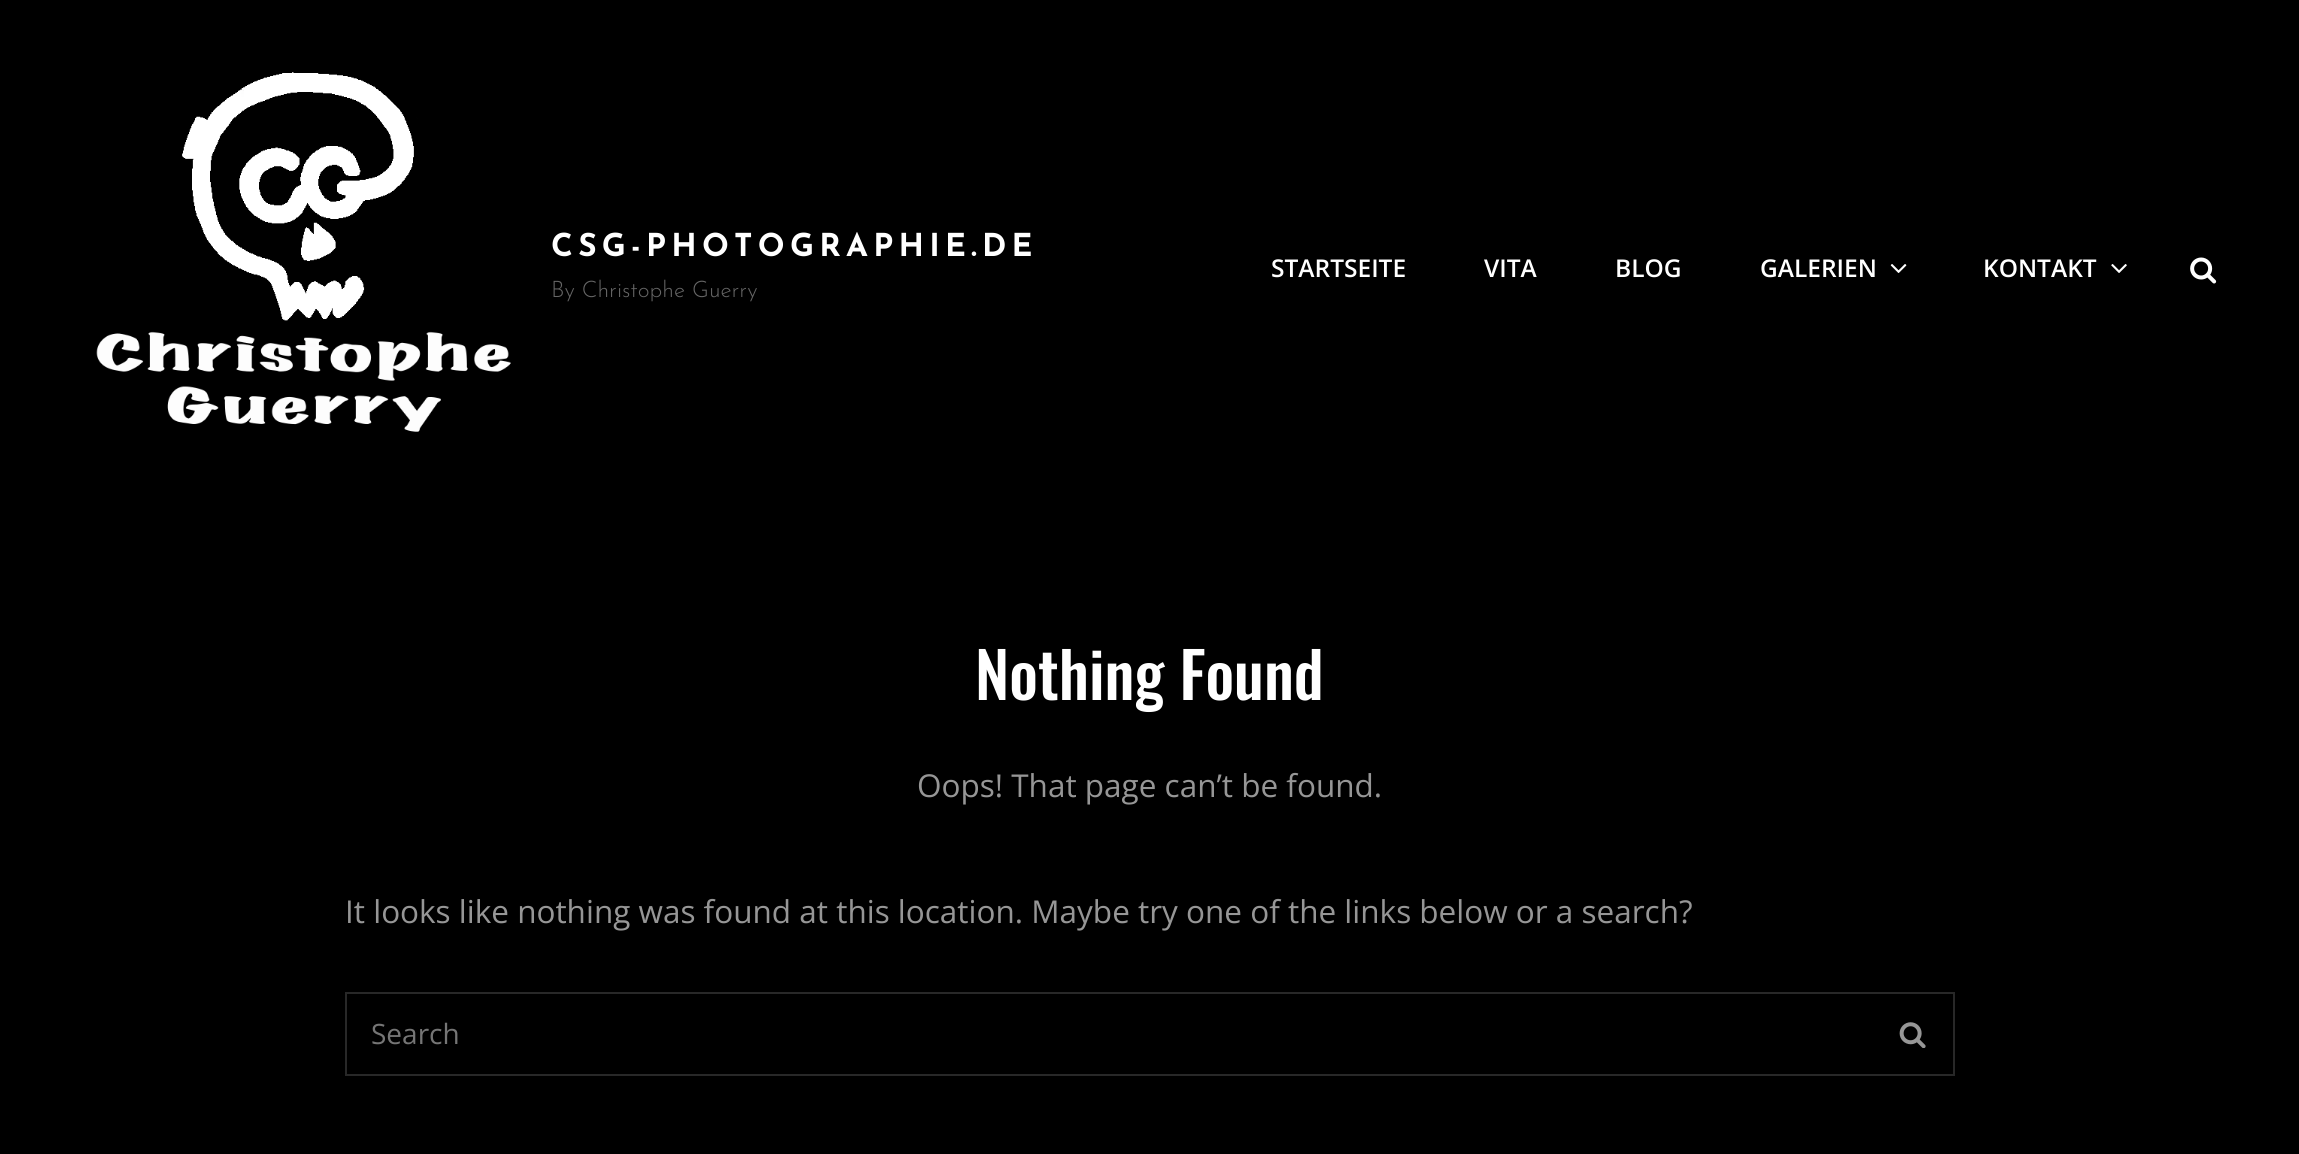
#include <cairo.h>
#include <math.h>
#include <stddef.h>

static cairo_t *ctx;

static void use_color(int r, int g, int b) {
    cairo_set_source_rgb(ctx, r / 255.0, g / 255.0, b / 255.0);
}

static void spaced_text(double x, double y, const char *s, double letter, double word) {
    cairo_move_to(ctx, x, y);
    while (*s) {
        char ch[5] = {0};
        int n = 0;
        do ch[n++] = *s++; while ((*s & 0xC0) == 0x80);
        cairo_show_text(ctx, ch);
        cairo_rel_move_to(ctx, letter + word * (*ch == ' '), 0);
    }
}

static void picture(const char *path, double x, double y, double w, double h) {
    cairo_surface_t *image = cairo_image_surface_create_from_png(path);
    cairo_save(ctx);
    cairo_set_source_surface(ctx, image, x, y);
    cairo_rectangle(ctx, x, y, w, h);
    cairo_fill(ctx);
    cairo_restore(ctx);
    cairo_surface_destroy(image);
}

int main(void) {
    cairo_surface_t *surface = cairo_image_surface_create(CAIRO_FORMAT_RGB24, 2299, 1154);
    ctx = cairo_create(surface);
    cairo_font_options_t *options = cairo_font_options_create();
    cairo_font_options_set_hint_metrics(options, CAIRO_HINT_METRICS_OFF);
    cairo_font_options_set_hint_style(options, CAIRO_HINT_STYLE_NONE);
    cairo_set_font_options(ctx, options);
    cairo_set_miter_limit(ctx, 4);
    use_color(0, 0, 0);
    cairo_paint(ctx);
    picture("img1.png", 96, 72, 415, 360);
    cairo_select_font_face(ctx, "Josefin Sans", CAIRO_FONT_SLANT_NORMAL, CAIRO_FONT_WEIGHT_BOLD);
    cairo_set_font_size(ctx, 31.5);
    use_color(255, 255, 255);
    spaced_text(551, 256, "CSG-PHOTOGRAPHIE.DE", 5.25, 0);
    cairo_select_font_face(ctx, "Josefin Sans Light", CAIRO_FONT_SLANT_NORMAL, CAIRO_FONT_WEIGHT_NORMAL);
    cairo_set_font_size(ctx, 22.75);
    use_color(102, 102, 102);
    cairo_move_to(ctx, 551, 297);
    cairo_show_text(ctx, "By Christophe Guerry");
    cairo_select_font_face(ctx, "Open Sans SemiBold", CAIRO_FONT_SLANT_NORMAL, CAIRO_FONT_WEIGHT_NORMAL);
    cairo_set_font_size(ctx, 24.5);
    use_color(255, 255, 255);
    cairo_move_to(ctx, 1271, 277);
    cairo_show_text(ctx, "STARTSEITE");
    cairo_move_to(ctx, 1484, 277);
    cairo_show_text(ctx, "VITA");
    cairo_move_to(ctx, 1615, 277);
    cairo_show_text(ctx, "BLOG");
    cairo_move_to(ctx, 1760, 277);
    cairo_show_text(ctx, "GALERIEN");
    picture("img2.png", 1890, 264, 17, 9);
    cairo_move_to(ctx, 1983, 277);
    cairo_show_text(ctx, "KONTAKT");
    picture("img3.png", 2111, 264, 16, 9);
    picture("img4.png", 2190, 257, 27, 27);
    cairo_select_font_face(ctx, "Oswald Medium", CAIRO_FONT_SLANT_NORMAL, CAIRO_FONT_WEIGHT_NORMAL);
    cairo_set_font_size(ctx, 63);
    cairo_move_to(ctx, 975, 700);
    cairo_show_text(ctx, "Nothing Found");
    cairo_select_font_face(ctx, "Open Sans", CAIRO_FONT_SLANT_NORMAL, CAIRO_FONT_WEIGHT_NORMAL);
    cairo_set_font_size(ctx, 31.5);
    use_color(150, 150, 150);
    cairo_move_to(ctx, 917, 797);
    cairo_show_text(ctx, "Oops! That page can’t be found.");
    cairo_move_to(ctx, 345, 923);
    cairo_show_text(ctx, "It looks like nothing was found at this location. Maybe try one of the links below or a search?");
    cairo_rectangle(ctx, 346, 993, 1608, 82);
    use_color(40, 40, 40);
    cairo_stroke(ctx);
    cairo_set_font_size(ctx, 28);
    use_color(117, 117, 117);
    cairo_move_to(ctx, 371, 1044);
    cairo_show_text(ctx, "Search");
    picture("img5.png", 1899, 1022, 27, 26);
    cairo_surface_write_to_png(surface, "result.png");
    cairo_font_options_destroy(options);
    cairo_destroy(ctx);
    cairo_surface_destroy(surface);
    return 0;
}
